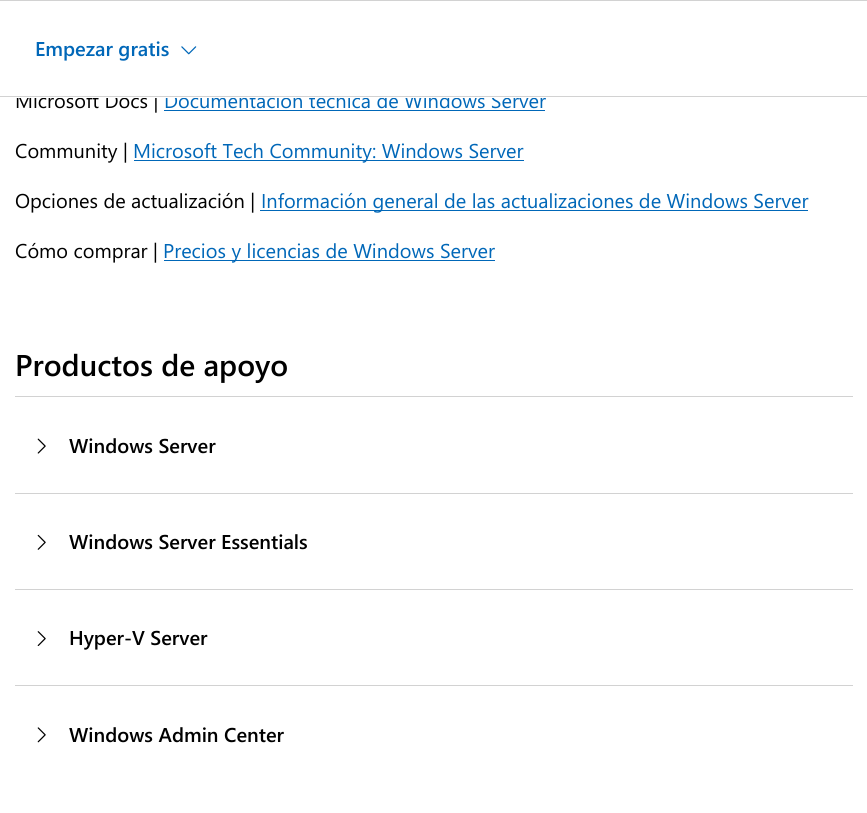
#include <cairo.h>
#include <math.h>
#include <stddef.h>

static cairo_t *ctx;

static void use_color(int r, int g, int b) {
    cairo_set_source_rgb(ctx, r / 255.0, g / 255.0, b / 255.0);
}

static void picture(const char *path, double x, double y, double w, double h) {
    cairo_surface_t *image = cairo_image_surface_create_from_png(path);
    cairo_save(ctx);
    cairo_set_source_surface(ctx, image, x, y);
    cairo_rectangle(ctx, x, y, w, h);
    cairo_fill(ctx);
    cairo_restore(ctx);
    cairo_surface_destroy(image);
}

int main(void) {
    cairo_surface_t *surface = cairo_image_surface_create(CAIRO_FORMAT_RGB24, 867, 813);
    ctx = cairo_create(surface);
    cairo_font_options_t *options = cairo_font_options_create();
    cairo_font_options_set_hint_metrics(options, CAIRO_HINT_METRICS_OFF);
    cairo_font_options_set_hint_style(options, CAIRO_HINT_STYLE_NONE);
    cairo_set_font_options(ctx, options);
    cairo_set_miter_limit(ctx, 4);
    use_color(255, 255, 255);
    cairo_paint(ctx);
    cairo_select_font_face(ctx, "Segoe UI", CAIRO_FONT_SLANT_NORMAL, CAIRO_FONT_WEIGHT_NORMAL);
    cairo_set_font_size(ctx, 20);
    use_color(0, 0, 0);
    cairo_move_to(ctx, 15, 108);
    cairo_show_text(ctx, "Microsoft Docs |");
    use_color(0, 103, 184);
    cairo_move_to(ctx, 164, 108);
    cairo_show_text(ctx, "Documentación técnica de Windows Server");
    use_color(255, 255, 255);
    cairo_rectangle(ctx, 16, 92, 530, 6);
    cairo_fill(ctx);
    use_color(210, 210, 210);
    cairo_rectangle(ctx, 0, 0, 867, 1);
    cairo_fill(ctx);
    cairo_rectangle(ctx, 0, 96, 867, 1);
    cairo_fill(ctx);
    cairo_select_font_face(ctx, "Segoe UI SemiBold", CAIRO_FONT_SLANT_NORMAL, CAIRO_FONT_WEIGHT_NORMAL);
    use_color(0, 103, 184);
    cairo_move_to(ctx, 35, 56);
    cairo_show_text(ctx, "Empezar gratis");
    picture("img1.png", 181, 46, 16, 9);
    cairo_rectangle(ctx, 164, 110, 381, 1);
    cairo_fill(ctx);
    cairo_select_font_face(ctx, "Segoe UI", CAIRO_FONT_SLANT_NORMAL, CAIRO_FONT_WEIGHT_NORMAL);
    use_color(0, 0, 0);
    cairo_move_to(ctx, 15, 158);
    cairo_show_text(ctx, "Community |");
    use_color(0, 103, 184);
    cairo_rectangle(ctx, 134, 160, 390, 1);
    cairo_fill(ctx);
    cairo_move_to(ctx, 133, 158);
    cairo_show_text(ctx, "Microsoft Tech Community: Windows Server");
    use_color(0, 0, 0);
    cairo_move_to(ctx, 15, 208);
    cairo_show_text(ctx, "Opciones de actualización |");
    use_color(0, 103, 184);
    cairo_rectangle(ctx, 260, 210, 548, 1);
    cairo_fill(ctx);
    cairo_move_to(ctx, 261, 208);
    cairo_show_text(ctx, "Información general de las actualizaciones de Windows Server");
    use_color(0, 0, 0);
    cairo_move_to(ctx, 15, 258);
    cairo_show_text(ctx, "Cómo comprar |");
    use_color(0, 103, 184);
    cairo_rectangle(ctx, 164, 260, 331, 1);
    cairo_fill(ctx);
    cairo_move_to(ctx, 163, 258);
    cairo_show_text(ctx, "Precios y licencias de Windows Server");
    cairo_select_font_face(ctx, "Segoe UI SemiBold", CAIRO_FONT_SLANT_NORMAL, CAIRO_FONT_WEIGHT_NORMAL);
    cairo_set_font_size(ctx, 30);
    use_color(0, 0, 0);
    cairo_move_to(ctx, 15, 376);
    cairo_show_text(ctx, "Productos de apoyo");
    use_color(210, 210, 210);
    cairo_rectangle(ctx, 15, 396, 838, 1);
    cairo_fill(ctx);
    picture("img2.png", 37, 438, 9, 16);
    cairo_set_font_size(ctx, 20);
    use_color(0, 0, 0);
    cairo_move_to(ctx, 69, 453);
    cairo_show_text(ctx, "Windows Server");
    use_color(210, 210, 210);
    cairo_rectangle(ctx, 15, 493, 838, 1);
    cairo_fill(ctx);
    picture("img3.png", 37, 534, 9, 16);
    use_color(0, 0, 0);
    cairo_move_to(ctx, 69, 549);
    cairo_show_text(ctx, "Windows Server Essentials");
    use_color(210, 210, 210);
    cairo_rectangle(ctx, 15, 589, 838, 1);
    cairo_fill(ctx);
    picture("img4.png", 37, 631, 9, 15);
    use_color(0, 0, 0);
    cairo_move_to(ctx, 69, 645);
    cairo_show_text(ctx, "Hyper-V Server");
    use_color(210, 210, 210);
    cairo_rectangle(ctx, 15, 685, 838, 1);
    cairo_fill(ctx);
    picture("img5.png", 37, 727, 9, 16);
    use_color(0, 0, 0);
    cairo_move_to(ctx, 69, 742);
    cairo_show_text(ctx, "Windows Admin Center");
    cairo_surface_write_to_png(surface, "result.png");
    cairo_font_options_destroy(options);
    cairo_destroy(ctx);
    cairo_surface_destroy(surface);
    return 0;
}
